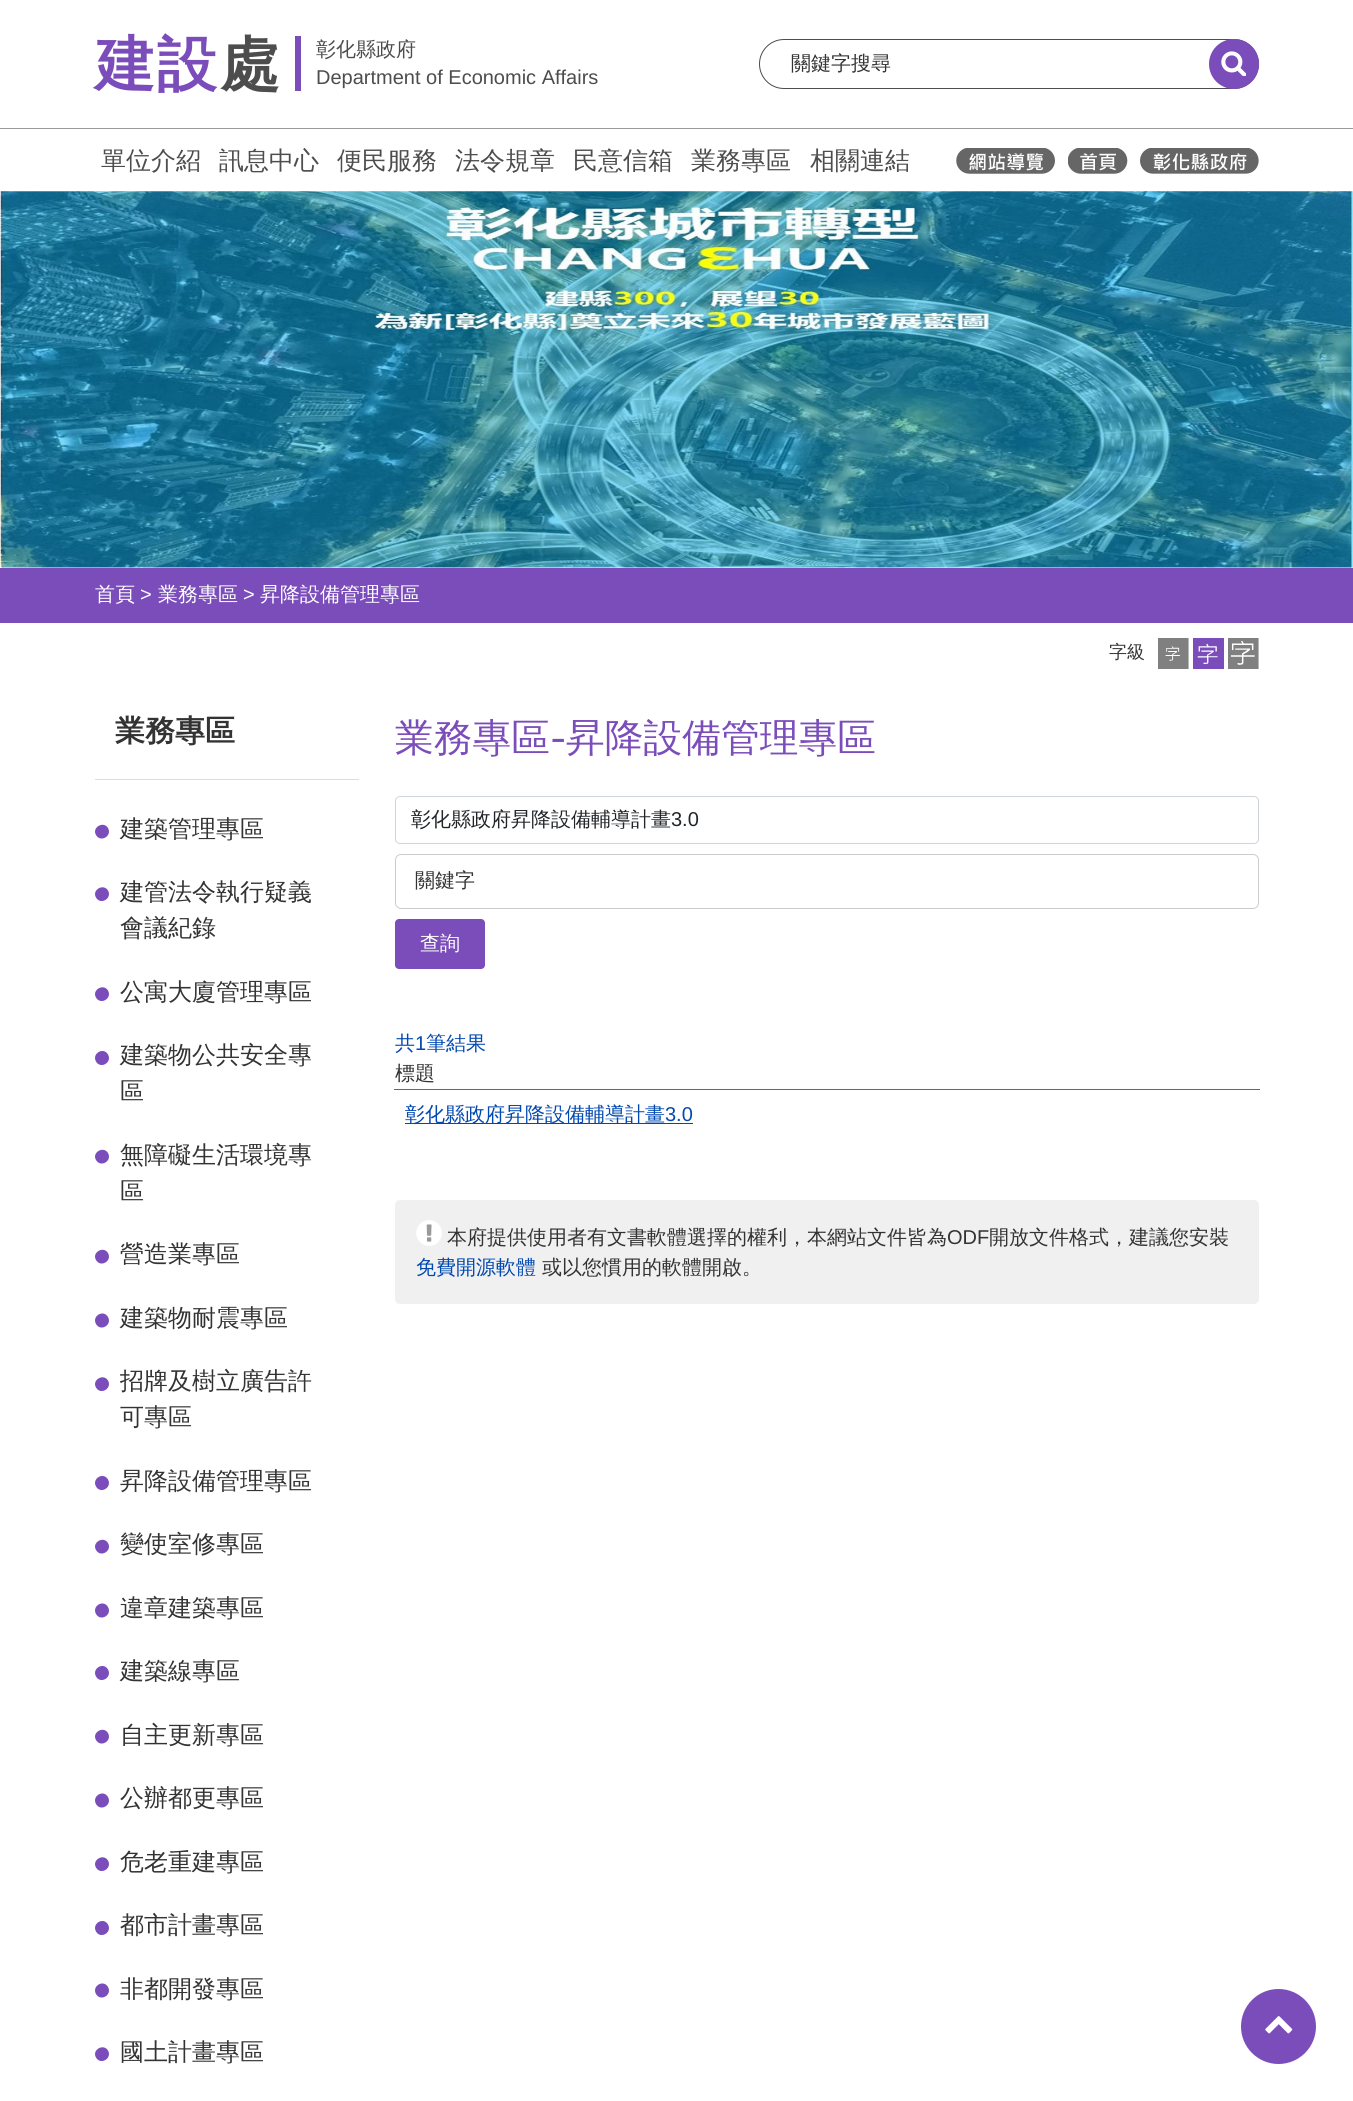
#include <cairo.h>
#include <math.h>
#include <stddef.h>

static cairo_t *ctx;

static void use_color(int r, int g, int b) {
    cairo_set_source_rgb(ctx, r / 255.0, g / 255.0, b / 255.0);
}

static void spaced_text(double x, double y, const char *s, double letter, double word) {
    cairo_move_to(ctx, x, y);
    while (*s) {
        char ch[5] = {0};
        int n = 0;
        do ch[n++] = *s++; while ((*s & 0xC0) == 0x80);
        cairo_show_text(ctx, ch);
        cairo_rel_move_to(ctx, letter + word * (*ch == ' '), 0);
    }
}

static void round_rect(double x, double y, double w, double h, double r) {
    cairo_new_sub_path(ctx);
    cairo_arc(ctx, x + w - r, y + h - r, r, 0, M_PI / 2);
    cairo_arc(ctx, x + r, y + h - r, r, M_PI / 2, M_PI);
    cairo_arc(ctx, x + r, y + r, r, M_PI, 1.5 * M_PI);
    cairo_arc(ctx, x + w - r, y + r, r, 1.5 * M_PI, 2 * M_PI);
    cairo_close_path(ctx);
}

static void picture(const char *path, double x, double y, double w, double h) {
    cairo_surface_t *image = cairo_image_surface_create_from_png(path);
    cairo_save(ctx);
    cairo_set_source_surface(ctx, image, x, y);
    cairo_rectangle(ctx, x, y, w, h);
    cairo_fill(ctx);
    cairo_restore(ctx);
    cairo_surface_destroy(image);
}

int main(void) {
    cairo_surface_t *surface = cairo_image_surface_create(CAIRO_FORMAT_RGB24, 1353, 2101);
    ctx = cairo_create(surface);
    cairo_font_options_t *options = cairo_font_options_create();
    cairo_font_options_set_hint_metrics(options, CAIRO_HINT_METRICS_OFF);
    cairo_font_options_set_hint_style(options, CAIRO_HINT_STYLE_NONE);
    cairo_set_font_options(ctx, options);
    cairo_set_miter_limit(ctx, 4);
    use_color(255, 255, 255);
    cairo_paint(ctx);
    use_color(153, 153, 153);
    cairo_rectangle(ctx, 0, 128, 1353, 1);
    cairo_fill(ctx);
    cairo_select_font_face(ctx, "WenQuanYi Zen Hei", CAIRO_FONT_SLANT_NORMAL, CAIRO_FONT_WEIGHT_BOLD);
    cairo_set_font_size(ctx, 60);
    use_color(123, 77, 187);
    spaced_text(95, 85, "建設", 2, 0);
    use_color(77, 77, 77);
    spaced_text(220, 85, "處", 2, 0);
    use_color(123, 77, 187);
    cairo_rectangle(ctx, 295, 36, 6, 55);
    cairo_fill(ctx);
    cairo_select_font_face(ctx, "WenQuanYi Zen Hei Medium", CAIRO_FONT_SLANT_NORMAL, CAIRO_FONT_WEIGHT_NORMAL);
    cairo_set_font_size(ctx, 20);
    use_color(77, 77, 77);
    cairo_move_to(ctx, 316, 56);
    cairo_show_text(ctx, "彰化縣政府");
    cairo_select_font_face(ctx, "Liberation Sans", CAIRO_FONT_SLANT_NORMAL, CAIRO_FONT_WEIGHT_NORMAL);
    cairo_move_to(ctx, 316, 84);
    cairo_show_text(ctx, "Department of Economic Affairs");
    round_rect(759.5, 39.5, 499, 49, 24.5);
    cairo_set_line_width(ctx, 1);
    cairo_stroke(ctx);
    cairo_select_font_face(ctx, "WenQuanYi Zen Hei Medium", CAIRO_FONT_SLANT_NORMAL, CAIRO_FONT_WEIGHT_NORMAL);
    use_color(51, 51, 51);
    cairo_move_to(ctx, 791, 70);
    cairo_show_text(ctx, "關鍵字搜尋");
    use_color(123, 77, 187);
    cairo_new_path(ctx);
    cairo_arc(ctx, 1234, 64, 25, 0, 2 * M_PI);
    cairo_fill(ctx);
    picture("img1.png", 1221, 51, 25, 25);
    cairo_set_font_size(ctx, 25);
    use_color(77, 77, 77);
    cairo_move_to(ctx, 101, 169);
    cairo_show_text(ctx, "單位介紹");
    cairo_move_to(ctx, 219, 169);
    cairo_show_text(ctx, "訊息中心");
    cairo_move_to(ctx, 337, 169);
    cairo_show_text(ctx, "便民服務");
    cairo_move_to(ctx, 455, 169);
    cairo_show_text(ctx, "法令規章");
    cairo_move_to(ctx, 573, 169);
    cairo_show_text(ctx, "民意信箱");
    cairo_move_to(ctx, 691, 169);
    cairo_show_text(ctx, "業務專區");
    cairo_move_to(ctx, 810, 169);
    cairo_show_text(ctx, "相關連結");
    picture("img2.png", 956, 148, 99, 26);
    picture("img3.png", 1068, 148, 60, 26);
    picture("img4.png", 1140, 148, 119, 26);
    picture("img5.png", 0, 191, 1353, 377);
    use_color(123, 77, 187);
    cairo_rectangle(ctx, 0, 568, 1353, 55);
    cairo_fill(ctx);
    cairo_set_font_size(ctx, 20);
    use_color(255, 255, 255);
    cairo_move_to(ctx, 95, 601);
    cairo_show_text(ctx, "首頁");
    cairo_select_font_face(ctx, "Liberation Sans", CAIRO_FONT_SLANT_NORMAL, CAIRO_FONT_WEIGHT_NORMAL);
    cairo_move_to(ctx, 140, 601);
    cairo_show_text(ctx, ">");
    cairo_select_font_face(ctx, "WenQuanYi Zen Hei Medium", CAIRO_FONT_SLANT_NORMAL, CAIRO_FONT_WEIGHT_NORMAL);
    cairo_move_to(ctx, 158, 601);
    cairo_show_text(ctx, "業務專區");
    cairo_select_font_face(ctx, "Liberation Sans", CAIRO_FONT_SLANT_NORMAL, CAIRO_FONT_WEIGHT_NORMAL);
    cairo_move_to(ctx, 243, 601);
    cairo_show_text(ctx, ">");
    cairo_select_font_face(ctx, "WenQuanYi Zen Hei Medium", CAIRO_FONT_SLANT_NORMAL, CAIRO_FONT_WEIGHT_NORMAL);
    cairo_move_to(ctx, 260, 601);
    cairo_show_text(ctx, "昇降設備管理專區");
    cairo_set_font_size(ctx, 18);
    use_color(51, 51, 51);
    cairo_move_to(ctx, 1109, 658);
    cairo_show_text(ctx, "字級");
    picture("img6.png", 1158, 638, 31, 31);
    use_color(123, 77, 187);
    cairo_rectangle(ctx, 1193, 638, 31, 31);
    cairo_fill(ctx);
    picture("img7.png", 1197, 643, 21, 21);
    picture("img8.png", 1228, 638, 31, 31);
    use_color(221, 221, 221);
    cairo_rectangle(ctx, 95, 779, 264, 1);
    cairo_fill(ctx);
    cairo_select_font_face(ctx, "WenQuanYi Zen Hei", CAIRO_FONT_SLANT_NORMAL, CAIRO_FONT_WEIGHT_BOLD);
    cairo_set_font_size(ctx, 30);
    use_color(51, 51, 51);
    cairo_move_to(ctx, 115, 741);
    cairo_show_text(ctx, "業務專區");
    use_color(123, 77, 187);
    cairo_new_path(ctx);
    cairo_move_to(ctx, 108, 828);
    cairo_curve_to(ctx, 112.5, 836, 100.5, 843, 96, 835);
    cairo_curve_to(ctx, 91.5, 827.5, 103.5, 820.5, 108, 828);
    cairo_close_path(ctx);
    cairo_fill(ctx);
    cairo_select_font_face(ctx, "WenQuanYi Zen Hei Medium", CAIRO_FONT_SLANT_NORMAL, CAIRO_FONT_WEIGHT_NORMAL);
    cairo_set_font_size(ctx, 24);
    use_color(51, 51, 51);
    cairo_move_to(ctx, 120, 837);
    cairo_show_text(ctx, "建築管理專區");
    use_color(123, 77, 187);
    cairo_new_path(ctx);
    cairo_move_to(ctx, 108, 890.5);
    cairo_curve_to(ctx, 112.5, 898.5, 100.5, 905.5, 96, 897.5);
    cairo_curve_to(ctx, 91.5, 890, 103.5, 883, 108, 890.5);
    cairo_close_path(ctx);
    cairo_fill(ctx);
    use_color(51, 51, 51);
    cairo_move_to(ctx, 120, 900);
    cairo_show_text(ctx, "建管法令執行疑義");
    cairo_move_to(ctx, 120, 936);
    cairo_show_text(ctx, "會議紀錄");
    use_color(123, 77, 187);
    cairo_new_path(ctx);
    cairo_move_to(ctx, 108, 990.5);
    cairo_curve_to(ctx, 112.5, 998.5, 100.5, 1005.5, 96, 997.5);
    cairo_curve_to(ctx, 91.5, 990, 103.5, 983, 108, 990.5);
    cairo_close_path(ctx);
    cairo_fill(ctx);
    use_color(51, 51, 51);
    cairo_move_to(ctx, 120, 1000);
    cairo_show_text(ctx, "公寓大廈管理專區");
    use_color(123, 77, 187);
    cairo_new_path(ctx);
    cairo_move_to(ctx, 108, 1054.5);
    cairo_curve_to(ctx, 112.5, 1062.5, 100.5, 1069.5, 96, 1061.5);
    cairo_curve_to(ctx, 91.5, 1053.5, 103.5, 1046.5, 108, 1054.5);
    cairo_close_path(ctx);
    cairo_fill(ctx);
    use_color(51, 51, 51);
    cairo_move_to(ctx, 120, 1063);
    cairo_show_text(ctx, "建築物公共安全專");
    cairo_move_to(ctx, 120, 1099);
    cairo_show_text(ctx, "區");
    use_color(123, 77, 187);
    cairo_new_path(ctx);
    cairo_move_to(ctx, 108, 1153);
    cairo_curve_to(ctx, 112.5, 1161, 100.5, 1168, 96, 1160);
    cairo_curve_to(ctx, 91.5, 1152.5, 103.5, 1145.5, 108, 1153);
    cairo_close_path(ctx);
    cairo_fill(ctx);
    use_color(51, 51, 51);
    cairo_move_to(ctx, 120, 1163);
    cairo_show_text(ctx, "無障礙生活環境專");
    cairo_move_to(ctx, 120, 1199);
    cairo_show_text(ctx, "區");
    use_color(123, 77, 187);
    cairo_new_path(ctx);
    cairo_move_to(ctx, 108, 1253);
    cairo_curve_to(ctx, 112.5, 1261, 100.5, 1268, 96, 1260);
    cairo_curve_to(ctx, 91.5, 1252.5, 103.5, 1245.5, 108, 1253);
    cairo_close_path(ctx);
    cairo_fill(ctx);
    use_color(51, 51, 51);
    cairo_move_to(ctx, 120, 1262);
    cairo_show_text(ctx, "營造業專區");
    use_color(123, 77, 187);
    cairo_new_path(ctx);
    cairo_move_to(ctx, 108, 1317);
    cairo_curve_to(ctx, 112.5, 1325, 100.5, 1332, 96, 1324);
    cairo_curve_to(ctx, 91.5, 1316, 103.5, 1309, 108, 1317);
    cairo_close_path(ctx);
    cairo_fill(ctx);
    use_color(51, 51, 51);
    cairo_move_to(ctx, 120, 1326);
    cairo_show_text(ctx, "建築物耐震專區");
    use_color(123, 77, 187);
    cairo_new_path(ctx);
    cairo_move_to(ctx, 108, 1380.5);
    cairo_curve_to(ctx, 112.5, 1388.5, 100.5, 1395.5, 96, 1387.5);
    cairo_curve_to(ctx, 91.5, 1380, 103.5, 1373, 108, 1380.5);
    cairo_close_path(ctx);
    cairo_fill(ctx);
    use_color(51, 51, 51);
    cairo_move_to(ctx, 120, 1389);
    cairo_show_text(ctx, "招牌及樹立廣告許");
    cairo_move_to(ctx, 120, 1425);
    cairo_show_text(ctx, "可專區");
    use_color(123, 77, 187);
    cairo_new_path(ctx);
    cairo_move_to(ctx, 108, 1479.5);
    cairo_curve_to(ctx, 112.5, 1487.5, 100.5, 1494.5, 96, 1486.5);
    cairo_curve_to(ctx, 91.5, 1478.5, 103.5, 1471.5, 108, 1479.5);
    cairo_close_path(ctx);
    cairo_fill(ctx);
    use_color(51, 51, 51);
    cairo_move_to(ctx, 120, 1489);
    cairo_show_text(ctx, "昇降設備管理專區");
    use_color(123, 77, 187);
    cairo_new_path(ctx);
    cairo_move_to(ctx, 108, 1543);
    cairo_curve_to(ctx, 112.5, 1551, 100.5, 1558, 96, 1550);
    cairo_curve_to(ctx, 91.5, 1542.5, 103.5, 1535.5, 108, 1543);
    cairo_close_path(ctx);
    cairo_fill(ctx);
    use_color(51, 51, 51);
    cairo_move_to(ctx, 120, 1552);
    cairo_show_text(ctx, "變使室修專區");
    use_color(123, 77, 187);
    cairo_new_path(ctx);
    cairo_move_to(ctx, 108, 1607);
    cairo_curve_to(ctx, 112.5, 1615, 100.5, 1622, 96, 1614);
    cairo_curve_to(ctx, 91.5, 1606, 103.5, 1599, 108, 1607);
    cairo_close_path(ctx);
    cairo_fill(ctx);
    use_color(51, 51, 51);
    cairo_move_to(ctx, 120, 1616);
    cairo_show_text(ctx, "違章建築專區");
    use_color(123, 77, 187);
    cairo_new_path(ctx);
    cairo_move_to(ctx, 108, 1669.5);
    cairo_curve_to(ctx, 112.5, 1677.5, 100.5, 1684.5, 96, 1676.5);
    cairo_curve_to(ctx, 91.5, 1668.5, 103.5, 1661.5, 108, 1669.5);
    cairo_close_path(ctx);
    cairo_fill(ctx);
    use_color(51, 51, 51);
    cairo_move_to(ctx, 120, 1679);
    cairo_show_text(ctx, "建築線專區");
    use_color(123, 77, 187);
    cairo_new_path(ctx);
    cairo_move_to(ctx, 108, 1733);
    cairo_curve_to(ctx, 112.5, 1741, 100.5, 1748, 96, 1740);
    cairo_curve_to(ctx, 91.5, 1732.5, 103.5, 1725.5, 108, 1733);
    cairo_close_path(ctx);
    cairo_fill(ctx);
    use_color(51, 51, 51);
    cairo_move_to(ctx, 120, 1743);
    cairo_show_text(ctx, "自主更新專區");
    use_color(123, 77, 187);
    cairo_new_path(ctx);
    cairo_move_to(ctx, 108, 1797);
    cairo_curve_to(ctx, 112.5, 1805, 100.5, 1812, 96, 1804);
    cairo_curve_to(ctx, 91.5, 1796, 103.5, 1789, 108, 1797);
    cairo_close_path(ctx);
    cairo_fill(ctx);
    use_color(51, 51, 51);
    cairo_move_to(ctx, 120, 1806);
    cairo_show_text(ctx, "公辦都更專區");
    use_color(123, 77, 187);
    cairo_new_path(ctx);
    cairo_move_to(ctx, 108, 1860.5);
    cairo_curve_to(ctx, 112.5, 1868.5, 100.5, 1875.5, 96, 1867.5);
    cairo_curve_to(ctx, 91.5, 1860, 103.5, 1853, 108, 1860.5);
    cairo_close_path(ctx);
    cairo_fill(ctx);
    use_color(51, 51, 51);
    cairo_move_to(ctx, 120, 1870);
    cairo_show_text(ctx, "危老重建專區");
    use_color(123, 77, 187);
    cairo_new_path(ctx);
    cairo_move_to(ctx, 108, 1924.5);
    cairo_curve_to(ctx, 112.5, 1932.5, 100.5, 1939.5, 96, 1931.5);
    cairo_curve_to(ctx, 91.5, 1923.5, 103.5, 1916.5, 108, 1924.5);
    cairo_close_path(ctx);
    cairo_fill(ctx);
    use_color(51, 51, 51);
    cairo_move_to(ctx, 120, 1933);
    cairo_show_text(ctx, "都市計畫專區");
    use_color(123, 77, 187);
    cairo_new_path(ctx);
    cairo_move_to(ctx, 108, 1987);
    cairo_curve_to(ctx, 112.5, 1995, 100.5, 2002, 96, 1994);
    cairo_curve_to(ctx, 91.5, 1986, 103.5, 1979, 108, 1987);
    cairo_close_path(ctx);
    cairo_fill(ctx);
    use_color(51, 51, 51);
    cairo_move_to(ctx, 120, 1997);
    cairo_show_text(ctx, "非都開發專區");
    use_color(123, 77, 187);
    cairo_new_path(ctx);
    cairo_move_to(ctx, 108, 2050.5);
    cairo_curve_to(ctx, 112.5, 2058.5, 100.5, 2065.5, 96, 2057.5);
    cairo_curve_to(ctx, 91.5, 2050, 103.5, 2043, 108, 2050.5);
    cairo_close_path(ctx);
    cairo_fill(ctx);
    use_color(51, 51, 51);
    cairo_move_to(ctx, 120, 2060);
    cairo_show_text(ctx, "國土計畫專區");
    cairo_set_font_size(ctx, 38.75);
    use_color(123, 77, 187);
    cairo_move_to(ctx, 395, 751);
    cairo_show_text(ctx, "業務專區");
    cairo_select_font_face(ctx, "Raleway Medium", CAIRO_FONT_SLANT_NORMAL, CAIRO_FONT_WEIGHT_NORMAL);
    cairo_move_to(ctx, 550, 751);
    cairo_show_text(ctx, "-");
    cairo_select_font_face(ctx, "WenQuanYi Zen Hei Medium", CAIRO_FONT_SLANT_NORMAL, CAIRO_FONT_WEIGHT_NORMAL);
    cairo_move_to(ctx, 566, 751);
    cairo_show_text(ctx, "昇降設備管理專區");
    round_rect(395.5, 796.5, 863, 47, 4.5);
    use_color(206, 212, 218);
    cairo_stroke(ctx);
    cairo_set_font_size(ctx, 20);
    use_color(33, 37, 41);
    cairo_move_to(ctx, 411, 826);
    cairo_show_text(ctx, "彰化縣政府昇降設備輔導計畫");
    cairo_select_font_face(ctx, "Liberation Sans", CAIRO_FONT_SLANT_NORMAL, CAIRO_FONT_WEIGHT_NORMAL);
    cairo_move_to(ctx, 671, 826);
    cairo_show_text(ctx, "3.0");
    round_rect(395.5, 854.5, 863, 54, 5.5);
    use_color(204, 204, 204);
    cairo_stroke(ctx);
    cairo_select_font_face(ctx, "WenQuanYi Zen Hei Medium", CAIRO_FONT_SLANT_NORMAL, CAIRO_FONT_WEIGHT_NORMAL);
    use_color(51, 51, 51);
    cairo_move_to(ctx, 415, 887);
    cairo_show_text(ctx, "關鍵字");
    use_color(123, 77, 187);
    round_rect(395, 919, 90, 50, 4);
    cairo_fill(ctx);
    use_color(255, 255, 255);
    cairo_move_to(ctx, 420, 950);
    cairo_show_text(ctx, "查詢");
    use_color(2, 72, 177);
    cairo_move_to(ctx, 395, 1050);
    cairo_show_text(ctx, "共");
    cairo_select_font_face(ctx, "Liberation Sans", CAIRO_FONT_SLANT_NORMAL, CAIRO_FONT_WEIGHT_NORMAL);
    cairo_move_to(ctx, 415, 1050);
    cairo_show_text(ctx, "1");
    cairo_select_font_face(ctx, "WenQuanYi Zen Hei Medium", CAIRO_FONT_SLANT_NORMAL, CAIRO_FONT_WEIGHT_NORMAL);
    cairo_move_to(ctx, 426, 1050);
    cairo_show_text(ctx, "筆結果");
    use_color(123, 77, 187);
    cairo_rectangle(ctx, 394, 1089, 866, 1);
    cairo_fill(ctx);
    use_color(51, 51, 51);
    cairo_move_to(ctx, 395, 1080);
    cairo_show_text(ctx, "標題");
    use_color(2, 72, 177);
    cairo_rectangle(ctx, 405, 1123, 288, 1);
    cairo_fill(ctx);
    cairo_move_to(ctx, 405, 1121);
    cairo_show_text(ctx, "彰化縣政府昇降設備輔導計畫");
    cairo_select_font_face(ctx, "Liberation Sans", CAIRO_FONT_SLANT_NORMAL, CAIRO_FONT_WEIGHT_NORMAL);
    cairo_move_to(ctx, 665, 1121);
    cairo_show_text(ctx, "3.0");
    use_color(240, 240, 240);
    round_rect(395, 1200, 864, 104, 5);
    cairo_fill(ctx);
    use_color(153, 153, 153);
    cairo_arc(ctx, 429.5, 1232.5, 11.5, 0, 2 * M_PI);
    cairo_fill(ctx);
    picture("img9.png", 416, 1220, 26, 26);
    cairo_select_font_face(ctx, "WenQuanYi Zen Hei Medium", CAIRO_FONT_SLANT_NORMAL, CAIRO_FONT_WEIGHT_NORMAL);
    use_color(51, 51, 51);
    cairo_move_to(ctx, 447, 1244);
    cairo_show_text(ctx, "本府提供使用者有文書軟體選擇的權利，本網站文件皆為");
    cairo_select_font_face(ctx, "Liberation Sans", CAIRO_FONT_SLANT_NORMAL, CAIRO_FONT_WEIGHT_NORMAL);
    cairo_move_to(ctx, 947, 1244);
    cairo_show_text(ctx, "ODF");
    cairo_select_font_face(ctx, "WenQuanYi Zen Hei Medium", CAIRO_FONT_SLANT_NORMAL, CAIRO_FONT_WEIGHT_NORMAL);
    cairo_move_to(ctx, 989, 1244);
    cairo_show_text(ctx, "開放文件格式，建議您安裝");
    use_color(2, 72, 177);
    cairo_move_to(ctx, 416, 1274);
    cairo_show_text(ctx, "免費開源軟體");
    use_color(51, 51, 51);
    cairo_move_to(ctx, 542, 1274);
    cairo_show_text(ctx, "或以您慣用的軟體開啟。");
    use_color(123, 77, 187);
    cairo_new_path(ctx);
    cairo_arc(ctx, 1278.5, 2026.5, 37.5, 0, 2 * M_PI);
    cairo_fill(ctx);
    picture("img10.png", 1265, 2016, 28, 18);
    cairo_surface_write_to_png(surface, "result.png");
    cairo_font_options_destroy(options);
    cairo_destroy(ctx);
    cairo_surface_destroy(surface);
    return 0;
}
